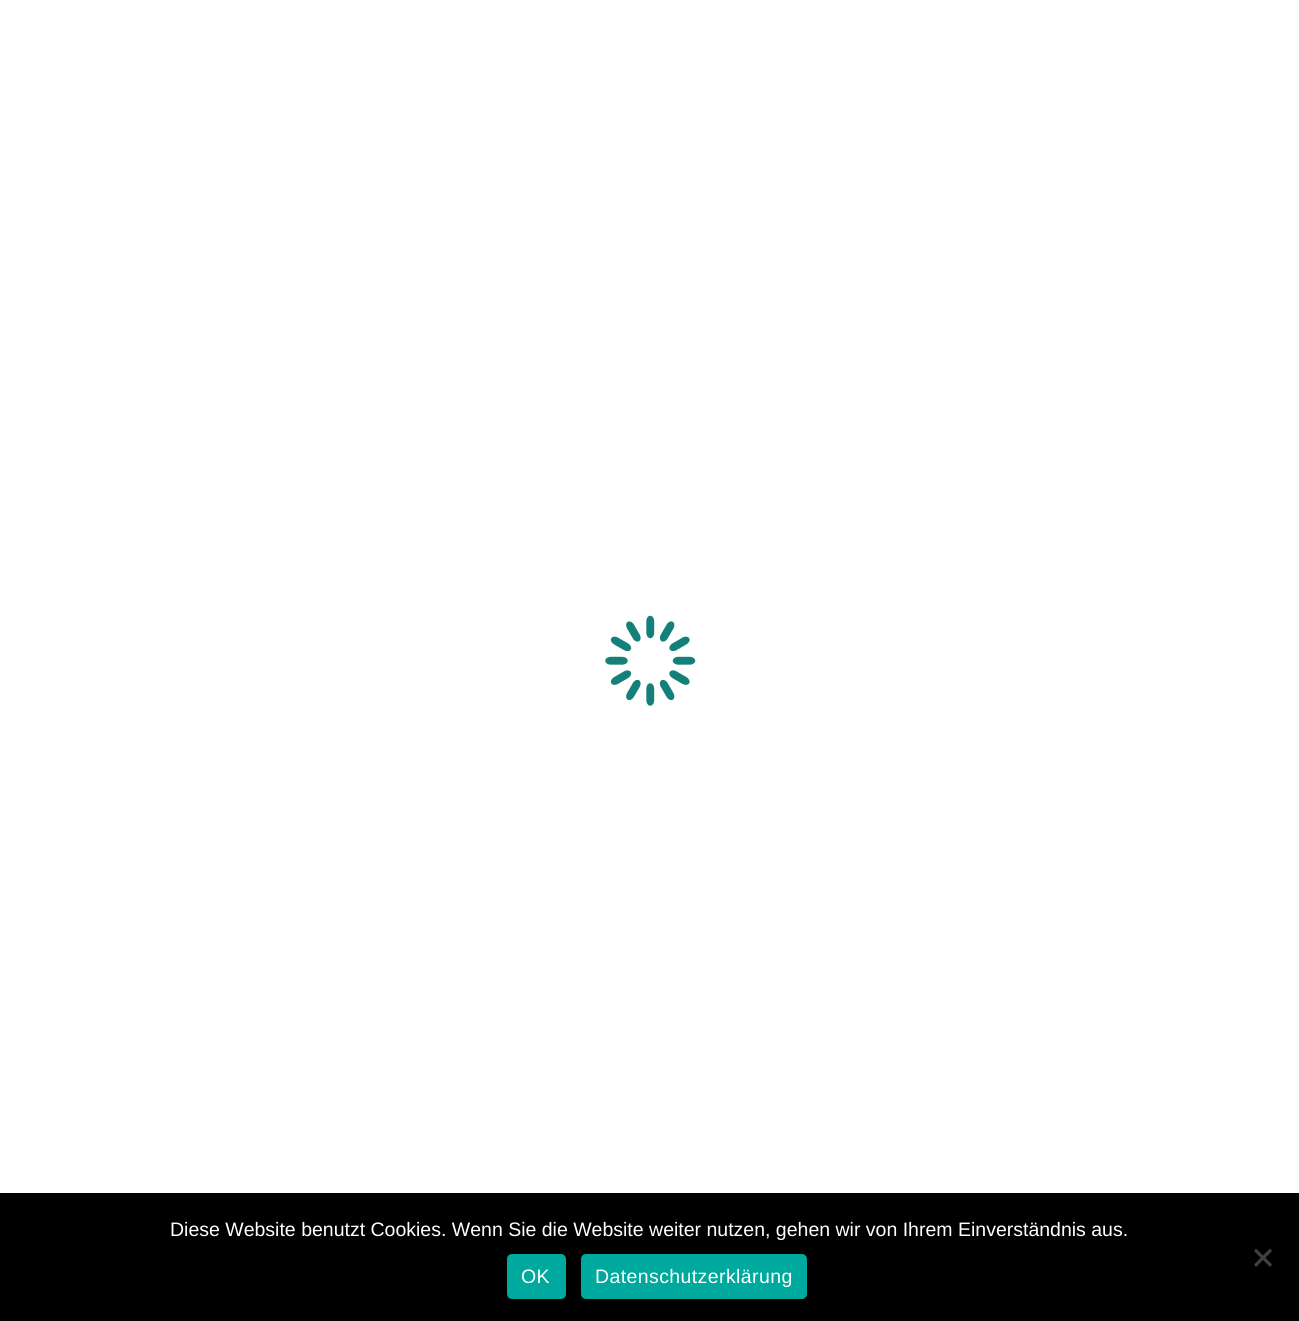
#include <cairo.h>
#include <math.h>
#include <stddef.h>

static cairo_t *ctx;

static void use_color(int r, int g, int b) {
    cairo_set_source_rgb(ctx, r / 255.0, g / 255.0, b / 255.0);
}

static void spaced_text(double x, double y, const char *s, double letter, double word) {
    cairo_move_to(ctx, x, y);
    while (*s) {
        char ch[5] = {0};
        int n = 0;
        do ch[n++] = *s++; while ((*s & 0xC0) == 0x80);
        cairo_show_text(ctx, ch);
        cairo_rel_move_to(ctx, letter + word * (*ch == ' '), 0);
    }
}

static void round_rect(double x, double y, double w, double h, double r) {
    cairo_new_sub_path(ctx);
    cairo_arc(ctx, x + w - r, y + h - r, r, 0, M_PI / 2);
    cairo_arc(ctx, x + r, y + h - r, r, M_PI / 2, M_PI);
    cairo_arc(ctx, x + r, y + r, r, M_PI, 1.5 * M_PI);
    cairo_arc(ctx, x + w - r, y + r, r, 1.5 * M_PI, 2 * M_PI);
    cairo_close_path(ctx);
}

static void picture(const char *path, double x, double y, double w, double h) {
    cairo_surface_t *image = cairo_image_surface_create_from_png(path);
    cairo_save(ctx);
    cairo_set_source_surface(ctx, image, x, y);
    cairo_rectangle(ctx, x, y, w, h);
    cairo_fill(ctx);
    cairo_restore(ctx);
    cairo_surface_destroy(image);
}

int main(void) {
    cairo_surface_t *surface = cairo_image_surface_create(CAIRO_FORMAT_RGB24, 1299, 1321);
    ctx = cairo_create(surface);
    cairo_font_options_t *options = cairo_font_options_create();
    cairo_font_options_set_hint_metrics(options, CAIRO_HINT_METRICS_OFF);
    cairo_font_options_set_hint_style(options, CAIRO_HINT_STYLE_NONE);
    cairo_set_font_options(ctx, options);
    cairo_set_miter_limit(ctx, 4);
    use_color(255, 255, 255);
    cairo_paint(ctx);
    picture("img1.png", 605, 615, 91, 91);
    use_color(0, 0, 0);
    cairo_rectangle(ctx, 0, 1193, 1299, 128);
    cairo_fill(ctx);
    cairo_select_font_face(ctx, "Liberation Sans", CAIRO_FONT_SLANT_NORMAL, CAIRO_FONT_WEIGHT_NORMAL);
    cairo_set_font_size(ctx, 19.5);
    use_color(255, 255, 255);
    cairo_move_to(ctx, 170, 1236);
    cairo_show_text(ctx, "Diese Website benutzt Cookies. Wenn Sie die Website weiter nutzen, gehen wir von Ihrem Einverständnis aus.");
    use_color(64, 64, 64);
    cairo_new_path(ctx);
    cairo_move_to(ctx, 1270, 1248.5);
    cairo_line_to(ctx, 1272, 1251);
    cairo_line_to(ctx, 1256, 1267);
    cairo_line_to(ctx, 1254, 1264.5);
    cairo_close_path(ctx);
    cairo_fill(ctx);
    cairo_new_path(ctx);
    cairo_move_to(ctx, 1254, 1251);
    cairo_line_to(ctx, 1256, 1248.5);
    cairo_line_to(ctx, 1272, 1264.5);
    cairo_line_to(ctx, 1270, 1267);
    cairo_close_path(ctx);
    cairo_fill(ctx);
    use_color(0, 169, 157);
    round_rect(507, 1254, 59, 45, 5);
    cairo_fill(ctx);
    use_color(255, 255, 255);
    spaced_text(521, 1283, "OK", 0.4, 0);
    use_color(0, 169, 157);
    round_rect(581, 1254, 226, 45, 5);
    cairo_fill(ctx);
    use_color(255, 255, 255);
    spaced_text(595, 1283, "Datenschutzerklärung", 0.4, 0);
    cairo_surface_write_to_png(surface, "result.png");
    cairo_font_options_destroy(options);
    cairo_destroy(ctx);
    cairo_surface_destroy(surface);
    return 0;
}
